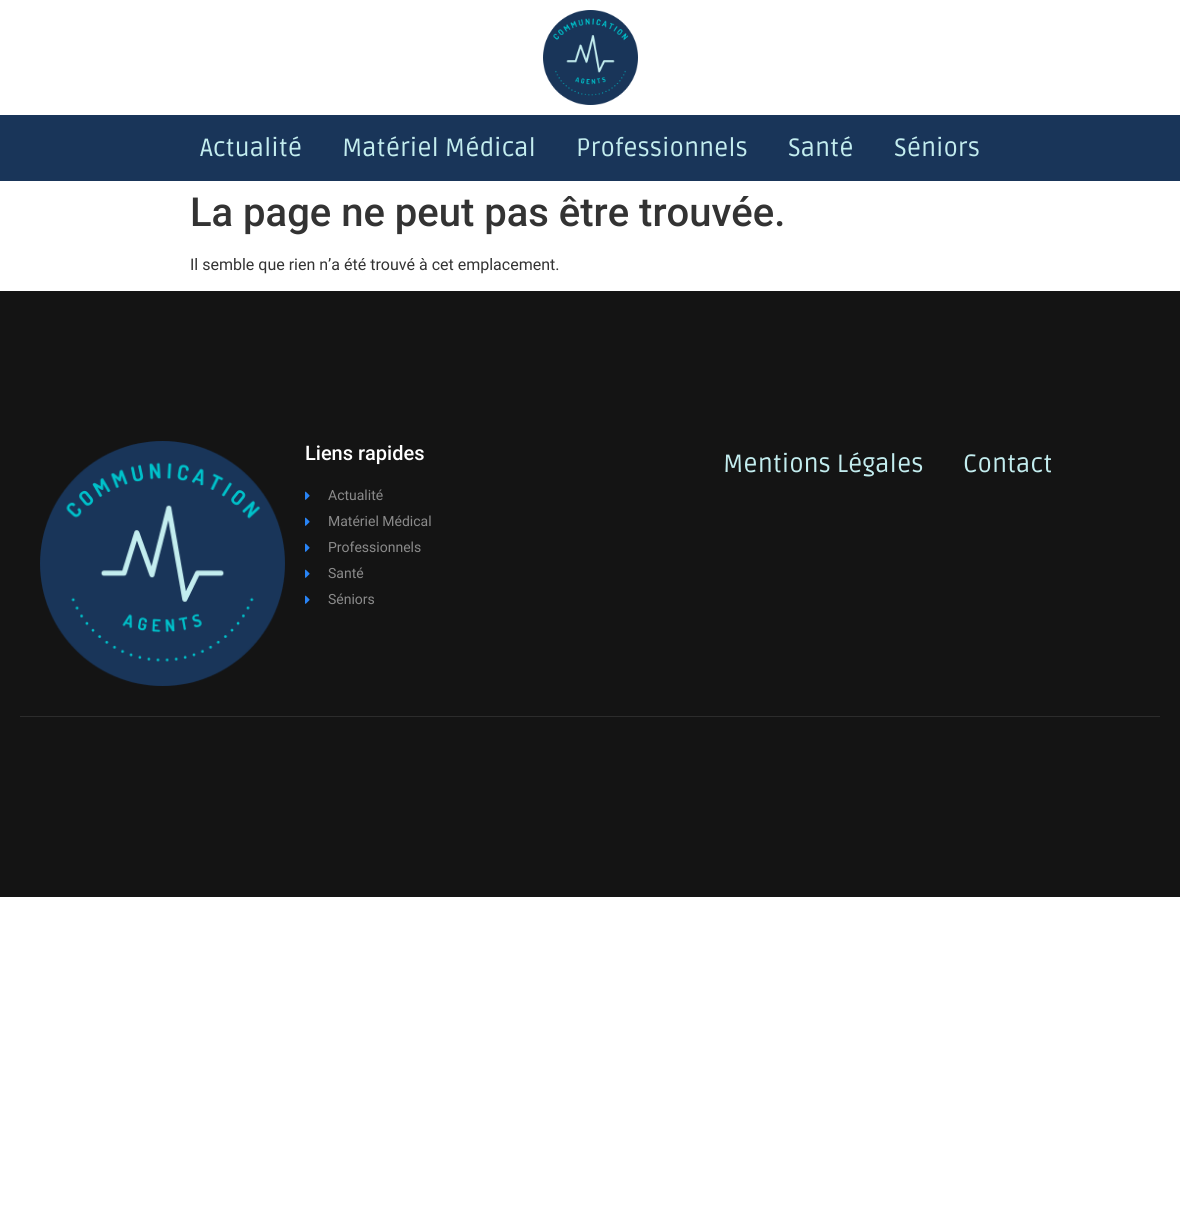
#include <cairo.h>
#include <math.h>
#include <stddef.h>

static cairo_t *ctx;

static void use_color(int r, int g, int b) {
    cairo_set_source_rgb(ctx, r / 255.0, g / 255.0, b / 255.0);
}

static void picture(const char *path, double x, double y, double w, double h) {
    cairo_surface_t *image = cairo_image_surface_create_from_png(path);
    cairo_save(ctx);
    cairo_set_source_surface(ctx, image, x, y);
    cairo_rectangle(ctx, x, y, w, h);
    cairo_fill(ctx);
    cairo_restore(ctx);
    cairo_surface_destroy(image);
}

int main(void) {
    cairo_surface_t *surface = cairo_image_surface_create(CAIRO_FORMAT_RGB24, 1180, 1212);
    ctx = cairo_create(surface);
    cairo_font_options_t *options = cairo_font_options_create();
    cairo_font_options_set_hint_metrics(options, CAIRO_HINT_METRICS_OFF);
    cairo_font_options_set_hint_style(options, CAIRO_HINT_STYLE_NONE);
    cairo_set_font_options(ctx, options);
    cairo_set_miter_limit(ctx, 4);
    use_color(255, 255, 255);
    cairo_paint(ctx);
    picture("img1.png", 543, 10, 95, 95);
    use_color(25, 53, 89);
    cairo_rectangle(ctx, 0, 115, 1180, 66);
    cairo_fill(ctx);
    cairo_select_font_face(ctx, "Ruda", CAIRO_FONT_SLANT_NORMAL, CAIRO_FONT_WEIGHT_NORMAL);
    cairo_set_font_size(ctx, 25);
    use_color(195, 237, 239);
    cairo_move_to(ctx, 200, 156);
    cairo_show_text(ctx, "Actualité");
    cairo_move_to(ctx, 342, 156);
    cairo_show_text(ctx, "Matériel Médical");
    cairo_move_to(ctx, 576, 156);
    cairo_show_text(ctx, "Professionnels");
    cairo_move_to(ctx, 788, 156);
    cairo_show_text(ctx, "Santé");
    cairo_move_to(ctx, 894, 156);
    cairo_show_text(ctx, "Séniors");
    cairo_select_font_face(ctx, "Roboto Medium", CAIRO_FONT_SLANT_NORMAL, CAIRO_FONT_WEIGHT_NORMAL);
    cairo_set_font_size(ctx, 40);
    use_color(51, 51, 51);
    cairo_move_to(ctx, 190, 226);
    cairo_show_text(ctx, "La page ne peut pas être trouvée.");
    cairo_select_font_face(ctx, "Roboto", CAIRO_FONT_SLANT_NORMAL, CAIRO_FONT_WEIGHT_NORMAL);
    cairo_set_font_size(ctx, 16);
    cairo_move_to(ctx, 190, 270);
    cairo_show_text(ctx, "Il semble que rien n’a été trouvé à cet emplacement.");
    use_color(20, 20, 20);
    cairo_rectangle(ctx, 0, 291, 1180, 606);
    cairo_fill(ctx);
    picture("img2.png", 40, 441, 245, 245);
    cairo_select_font_face(ctx, "Roboto Medium", CAIRO_FONT_SLANT_NORMAL, CAIRO_FONT_WEIGHT_NORMAL);
    cairo_set_font_size(ctx, 20);
    use_color(255, 255, 255);
    cairo_move_to(ctx, 305, 460);
    cairo_show_text(ctx, "Liens rapides");
    picture("img3.png", 305, 491, 5, 9);
    cairo_select_font_face(ctx, "Roboto", CAIRO_FONT_SLANT_NORMAL, CAIRO_FONT_WEIGHT_NORMAL);
    cairo_set_font_size(ctx, 14);
    use_color(138, 138, 138);
    cairo_move_to(ctx, 328, 500);
    cairo_show_text(ctx, "Actualité");
    picture("img3.png", 305, 517, 5, 9);
    cairo_move_to(ctx, 328, 526);
    cairo_show_text(ctx, "Matériel Médical");
    picture("img3.png", 305, 543, 5, 9);
    cairo_move_to(ctx, 328, 552);
    cairo_show_text(ctx, "Professionnels");
    picture("img3.png", 305, 569, 5, 9);
    cairo_move_to(ctx, 328, 578);
    cairo_show_text(ctx, "Santé");
    picture("img3.png", 305, 595, 5, 9);
    cairo_move_to(ctx, 328, 604);
    cairo_show_text(ctx, "Séniors");
    cairo_select_font_face(ctx, "Ruda", CAIRO_FONT_SLANT_NORMAL, CAIRO_FONT_WEIGHT_NORMAL);
    cairo_set_font_size(ctx, 25);
    use_color(195, 237, 239);
    cairo_move_to(ctx, 723, 472);
    cairo_show_text(ctx, "Mentions Légales");
    cairo_move_to(ctx, 963, 472);
    cairo_show_text(ctx, "Contact");
    use_color(44, 44, 44);
    cairo_rectangle(ctx, 20, 716, 1140, 1);
    cairo_fill(ctx);
    cairo_surface_write_to_png(surface, "result.png");
    cairo_font_options_destroy(options);
    cairo_destroy(ctx);
    cairo_surface_destroy(surface);
    return 0;
}
